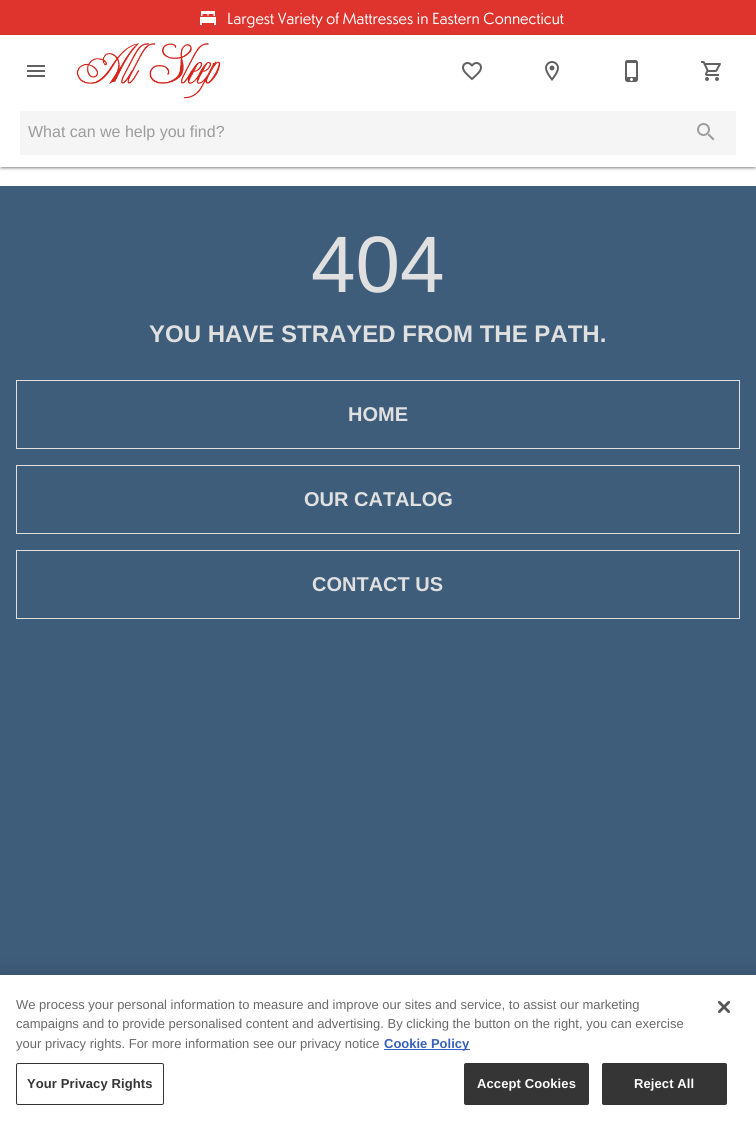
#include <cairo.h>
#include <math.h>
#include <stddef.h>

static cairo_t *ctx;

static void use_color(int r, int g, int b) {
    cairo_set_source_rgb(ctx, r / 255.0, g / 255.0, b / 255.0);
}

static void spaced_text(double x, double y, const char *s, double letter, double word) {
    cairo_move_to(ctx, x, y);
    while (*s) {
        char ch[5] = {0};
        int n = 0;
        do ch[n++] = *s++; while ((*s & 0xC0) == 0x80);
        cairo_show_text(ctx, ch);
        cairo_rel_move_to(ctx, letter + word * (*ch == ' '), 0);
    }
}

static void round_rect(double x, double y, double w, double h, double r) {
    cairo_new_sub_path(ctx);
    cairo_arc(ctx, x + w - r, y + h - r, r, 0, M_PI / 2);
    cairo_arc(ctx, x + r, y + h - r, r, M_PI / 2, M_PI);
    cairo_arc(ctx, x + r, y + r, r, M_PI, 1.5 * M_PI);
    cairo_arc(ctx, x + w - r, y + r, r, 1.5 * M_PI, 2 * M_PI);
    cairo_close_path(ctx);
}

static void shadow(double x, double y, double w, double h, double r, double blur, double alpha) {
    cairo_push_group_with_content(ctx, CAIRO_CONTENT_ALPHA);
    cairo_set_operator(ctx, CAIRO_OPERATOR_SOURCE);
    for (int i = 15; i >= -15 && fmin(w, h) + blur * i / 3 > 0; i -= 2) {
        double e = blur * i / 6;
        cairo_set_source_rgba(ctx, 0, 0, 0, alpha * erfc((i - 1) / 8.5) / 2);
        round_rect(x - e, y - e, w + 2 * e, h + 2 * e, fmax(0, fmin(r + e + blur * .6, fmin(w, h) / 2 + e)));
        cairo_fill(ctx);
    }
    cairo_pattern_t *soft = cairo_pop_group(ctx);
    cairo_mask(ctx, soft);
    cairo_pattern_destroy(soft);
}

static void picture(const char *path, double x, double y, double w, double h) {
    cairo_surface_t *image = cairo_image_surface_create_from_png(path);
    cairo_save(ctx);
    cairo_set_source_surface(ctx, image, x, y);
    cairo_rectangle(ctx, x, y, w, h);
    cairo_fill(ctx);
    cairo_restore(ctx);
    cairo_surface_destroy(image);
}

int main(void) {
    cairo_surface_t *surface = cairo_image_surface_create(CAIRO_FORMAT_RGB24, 756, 1125);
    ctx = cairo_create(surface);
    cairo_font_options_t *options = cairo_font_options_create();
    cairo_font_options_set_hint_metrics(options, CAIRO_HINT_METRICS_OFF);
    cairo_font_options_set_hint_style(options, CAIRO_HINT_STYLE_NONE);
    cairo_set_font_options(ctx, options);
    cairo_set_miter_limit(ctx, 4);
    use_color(255, 255, 255);
    cairo_paint(ctx);
    use_color(222, 52, 45);
    cairo_rectangle(ctx, 0, 0, 756, 35);
    cairo_fill(ctx);
    picture("img1.png", 200, 11, 16, 14);
    cairo_select_font_face(ctx, "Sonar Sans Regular", CAIRO_FONT_SLANT_NORMAL, CAIRO_FONT_WEIGHT_NORMAL);
    cairo_set_font_size(ctx, 16);
    use_color(255, 255, 255);
    cairo_move_to(ctx, 227, 24);
    cairo_show_text(ctx, "Largest Variety of Mattresses in Eastern Connecticut");
    use_color(0, 0, 0);
    shadow(0, 36, 756, 132, 0, 2.5, 0.12);
    shadow(0, 37, 756, 132, 0, 1, 0.14);
    shadow(2, 40, 752, 128, 0, 0.5, 0.2);
    use_color(255, 255, 255);
    cairo_rectangle(ctx, 0, 35, 756, 132);
    cairo_fill(ctx);
    picture("img2.png", 27, 65, 18, 12);
    picture("img3.png", 76, 43, 145, 56);
    picture("img4.png", 462, 62, 20, 19);
    picture("img5.png", 545, 61, 14, 20);
    picture("img6.png", 625, 60, 13, 22);
    picture("img7.png", 701, 61, 20, 20);
    use_color(245, 245, 245);
    cairo_rectangle(ctx, 20, 111, 716, 44);
    cairo_fill(ctx);
    cairo_select_font_face(ctx, "Liberation Sans", CAIRO_FONT_SLANT_NORMAL, CAIRO_FONT_WEIGHT_NORMAL);
    use_color(156, 156, 156);
    cairo_move_to(ctx, 28, 137);
    cairo_show_text(ctx, "What can we help you find?");
    picture("img8.png", 697, 123, 18, 18);
    use_color(62, 93, 123);
    cairo_rectangle(ctx, 0, 186, 756, 789);
    cairo_fill(ctx);
    cairo_set_font_size(ctx, 80);
    use_color(224, 224, 224);
    cairo_move_to(ctx, 311, 292);
    cairo_show_text(ctx, "404");
    cairo_select_font_face(ctx, "Liberation Sans", CAIRO_FONT_SLANT_NORMAL, CAIRO_FONT_WEIGHT_BOLD);
    cairo_set_font_size(ctx, 24);
    cairo_move_to(ctx, 149, 342);
    cairo_show_text(ctx, "YOU HAVE STRAYED FROM THE PATH.");
    cairo_rectangle(ctx, 16.5, 380.5, 723, 68);
    cairo_set_line_width(ctx, 1);
    cairo_stroke(ctx);
    cairo_set_font_size(ctx, 20);
    cairo_move_to(ctx, 348, 421);
    cairo_show_text(ctx, "HOME");
    cairo_rectangle(ctx, 16.5, 465.5, 723, 68);
    cairo_stroke(ctx);
    cairo_move_to(ctx, 304, 506);
    cairo_show_text(ctx, "OUR CATALOG");
    cairo_rectangle(ctx, 16.5, 550.5, 723, 68);
    cairo_stroke(ctx);
    cairo_move_to(ctx, 312, 591);
    cairo_show_text(ctx, "CONTACT US");
    use_color(0, 0, 0);
    shadow(0, 975, 756, 150, 0, 9, 0.2);
    use_color(255, 255, 255);
    cairo_rectangle(ctx, 0, 975, 756, 150);
    cairo_fill(ctx);
    cairo_select_font_face(ctx, "Liberation Sans", CAIRO_FONT_SLANT_NORMAL, CAIRO_FONT_WEIGHT_NORMAL);
    cairo_set_font_size(ctx, 13);
    use_color(105, 105, 105);
    cairo_move_to(ctx, 16, 1009);
    cairo_show_text(ctx, "We process your personal information to measure and improve our sites and service, to assist our marketing");
    cairo_move_to(ctx, 16, 1028);
    cairo_show_text(ctx, "campaigns and to provide personalised content and advertising. By clicking the button on the right, you can exercise");
    cairo_move_to(ctx, 16, 1048);
    cairo_show_text(ctx, "your privacy rights. For more information see our privacy notice");
    use_color(56, 96, 190);
    cairo_rectangle(ctx, 384, 1049, 86, 1);
    cairo_fill(ctx);
    cairo_select_font_face(ctx, "Liberation Sans", CAIRO_FONT_SLANT_NORMAL, CAIRO_FONT_WEIGHT_BOLD);
    cairo_move_to(ctx, 384, 1048);
    cairo_show_text(ctx, "Cookie Policy");
    round_rect(16.5, 1063.5, 147, 41, 1.5);
    use_color(53, 53, 53);
    cairo_stroke(ctx);
    spaced_text(27, 1088, "Your Privacy Rights", 0.1, 0);
    round_rect(464.5, 1063.5, 124, 41, 1.5);
    cairo_fill_preserve(ctx);
    cairo_stroke(ctx);
    use_color(255, 255, 255);
    spaced_text(477, 1088, "Accept Cookies", 0.1, 0);
    use_color(53, 53, 53);
    round_rect(602.5, 1063.5, 124, 41, 1.5);
    cairo_fill_preserve(ctx);
    cairo_stroke(ctx);
    use_color(255, 255, 255);
    spaced_text(634, 1088, "Reject All", 0.1, 0);
    picture("img9.png", 718, 1001, 12, 12);
    cairo_surface_write_to_png(surface, "result.png");
    cairo_font_options_destroy(options);
    cairo_destroy(ctx);
    cairo_surface_destroy(surface);
    return 0;
}
